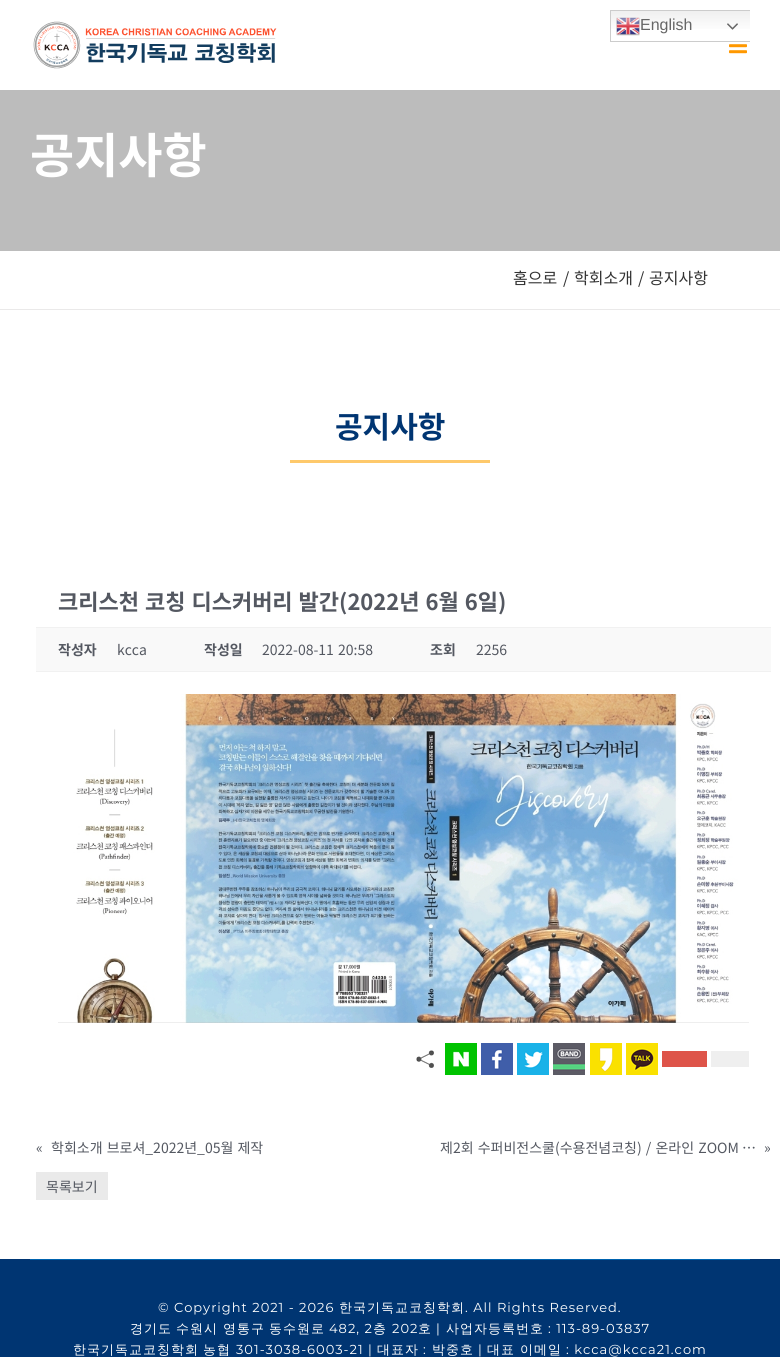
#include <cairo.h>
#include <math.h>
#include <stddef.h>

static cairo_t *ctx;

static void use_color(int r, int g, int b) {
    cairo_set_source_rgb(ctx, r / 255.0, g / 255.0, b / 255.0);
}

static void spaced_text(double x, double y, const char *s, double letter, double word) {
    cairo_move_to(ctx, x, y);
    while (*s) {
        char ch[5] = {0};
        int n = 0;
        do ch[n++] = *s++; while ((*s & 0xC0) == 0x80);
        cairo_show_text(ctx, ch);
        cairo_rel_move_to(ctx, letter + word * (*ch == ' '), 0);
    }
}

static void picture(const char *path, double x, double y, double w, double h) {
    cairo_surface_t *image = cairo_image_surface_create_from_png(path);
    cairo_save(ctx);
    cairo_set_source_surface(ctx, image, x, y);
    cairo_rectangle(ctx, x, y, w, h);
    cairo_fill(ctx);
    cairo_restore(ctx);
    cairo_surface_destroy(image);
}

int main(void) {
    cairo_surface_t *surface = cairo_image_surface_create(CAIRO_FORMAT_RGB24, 780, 1357);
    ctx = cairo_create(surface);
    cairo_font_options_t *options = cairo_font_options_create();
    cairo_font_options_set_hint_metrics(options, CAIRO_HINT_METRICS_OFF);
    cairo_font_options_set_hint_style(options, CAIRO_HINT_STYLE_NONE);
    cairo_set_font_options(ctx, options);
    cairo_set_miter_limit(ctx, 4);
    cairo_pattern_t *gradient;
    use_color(255, 255, 255);
    cairo_paint(ctx);
    gradient = cairo_pattern_create_linear(680, 10, 680, 42);
    cairo_pattern_add_color_stop_rgba(gradient, 0, 0.937, 0.937, 0.937, 1);
    cairo_pattern_add_color_stop_rgba(gradient, 0.7, 1, 1, 1, 1);
    cairo_set_source(ctx, gradient);
    cairo_pattern_destroy(gradient);
    cairo_rectangle(ctx, 611, 11, 139, 18);
    cairo_fill(ctx);
    cairo_save(ctx);
    cairo_rectangle(ctx, 610, 10, 140, 32);
    cairo_clip(ctx);
    cairo_rectangle(ctx, 610.5, 10.5, 151, 31);
    use_color(204, 204, 204);
    cairo_set_line_width(ctx, 1);
    cairo_stroke(ctx);
    cairo_restore(ctx);
    picture("img1.png", 616, 17, 24, 19);
    cairo_select_font_face(ctx, "Liberation Sans", CAIRO_FONT_SLANT_NORMAL, CAIRO_FONT_WEIGHT_NORMAL);
    cairo_set_font_size(ctx, 16);
    use_color(102, 102, 102);
    cairo_move_to(ctx, 640, 30);
    cairo_show_text(ctx, "English");
    picture("img2.png", 727, 23, 11, 7);
    picture("img3.png", 33, 21, 244, 48);
    picture("img4.png", 729, 44, 18, 10);
    use_color(188, 188, 188);
    cairo_rectangle(ctx, 0, 90, 780, 161);
    cairo_fill(ctx);
    cairo_select_font_face(ctx, "Noto Sans KR", CAIRO_FONT_SLANT_NORMAL, CAIRO_FONT_WEIGHT_BOLD);
    cairo_set_font_size(ctx, 48);
    use_color(255, 255, 255);
    cairo_move_to(ctx, 30, 173);
    cairo_show_text(ctx, "공지사항");
    use_color(234, 233, 233);
    cairo_rectangle(ctx, 0, 309, 780, 1);
    cairo_fill(ctx);
    cairo_select_font_face(ctx, "Noto Sans KR", CAIRO_FONT_SLANT_NORMAL, CAIRO_FONT_WEIGHT_NORMAL);
    cairo_set_font_size(ctx, 16);
    use_color(51, 51, 51);
    cairo_move_to(ctx, 513, 284);
    cairo_show_text(ctx, "홈으로");
    cairo_move_to(ctx, 563, 284);
    cairo_show_text(ctx, "/");
    cairo_move_to(ctx, 574, 284);
    cairo_show_text(ctx, "학회소개");
    cairo_move_to(ctx, 638, 284);
    cairo_show_text(ctx, "/");
    cairo_move_to(ctx, 649, 284);
    cairo_show_text(ctx, "공지사항");
    cairo_select_font_face(ctx, "Noto Sans KR", CAIRO_FONT_SLANT_NORMAL, CAIRO_FONT_WEIGHT_BOLD);
    cairo_set_font_size(ctx, 30);
    use_color(0, 53, 114);
    cairo_move_to(ctx, 335, 438);
    cairo_show_text(ctx, "공지사항");
    use_color(254, 201, 107);
    cairo_rectangle(ctx, 290, 460, 200, 3);
    cairo_fill(ctx);
    cairo_set_font_size(ctx, 22);
    use_color(84, 88, 97);
    spaced_text(58, 610, "크리스천 코칭 디스커버리 발간(2022년 6월 6일)", 0, 1);
    use_color(249, 249, 249);
    cairo_rectangle(ctx, 36, 628, 735, 43);
    cairo_fill(ctx);
    use_color(241, 241, 241);
    cairo_rectangle(ctx, 36, 627, 735, 1);
    cairo_fill(ctx);
    cairo_rectangle(ctx, 36, 671, 735, 1);
    cairo_fill(ctx);
    cairo_set_font_size(ctx, 14);
    use_color(84, 88, 97);
    cairo_move_to(ctx, 58, 655);
    cairo_show_text(ctx, "작성자");
    cairo_select_font_face(ctx, "Noto Sans KR", CAIRO_FONT_SLANT_NORMAL, CAIRO_FONT_WEIGHT_NORMAL);
    cairo_move_to(ctx, 117, 655);
    cairo_show_text(ctx, "kcca");
    cairo_select_font_face(ctx, "Noto Sans KR", CAIRO_FONT_SLANT_NORMAL, CAIRO_FONT_WEIGHT_BOLD);
    cairo_move_to(ctx, 204, 655);
    cairo_show_text(ctx, "작성일");
    cairo_select_font_face(ctx, "Noto Sans KR", CAIRO_FONT_SLANT_NORMAL, CAIRO_FONT_WEIGHT_NORMAL);
    spaced_text(262, 655, "2022-08-11 20:58", 0, 1);
    cairo_select_font_face(ctx, "Noto Sans KR", CAIRO_FONT_SLANT_NORMAL, CAIRO_FONT_WEIGHT_BOLD);
    cairo_move_to(ctx, 430, 655);
    cairo_show_text(ctx, "조회");
    cairo_select_font_face(ctx, "Noto Sans KR", CAIRO_FONT_SLANT_NORMAL, CAIRO_FONT_WEIGHT_NORMAL);
    cairo_move_to(ctx, 476, 655);
    cairo_show_text(ctx, "2256");
    picture("img5.png", 58, 694, 691, 329);
    picture("img6.png", 416, 1050, 18, 18);
    picture("img7.png", 445, 1043, 32, 32);
    picture("img8.png", 481, 1043, 32, 32);
    picture("img9.png", 517, 1043, 32, 32);
    picture("img10.png", 553, 1043, 32, 32);
    picture("img11.png", 590, 1043, 32, 32);
    picture("img12.png", 626, 1043, 32, 32);
    use_color(222, 84, 73);
    cairo_rectangle(ctx, 662, 1051, 45, 16);
    cairo_fill(ctx);
    use_color(239, 239, 239);
    cairo_rectangle(ctx, 711, 1051, 38, 16);
    cairo_fill(ctx);
    use_color(84, 88, 97);
    cairo_move_to(ctx, 36, 1153);
    cairo_show_text(ctx, "«");
    spaced_text(51, 1153, "학회소개 브로셔_2022년_05월 제작", 0, 1);
    spaced_text(440, 1153, "제2회 수퍼비전스쿨(수용전념코칭) / 온라인 ZOOM", 0, 1);
    spaced_text(742, 1153, "…", 0, 1);
    cairo_move_to(ctx, 764, 1153);
    cairo_show_text(ctx, "»");
    use_color(234, 234, 234);
    cairo_rectangle(ctx, 36, 1172, 72, 28);
    cairo_fill(ctx);
    use_color(84, 88, 97);
    cairo_move_to(ctx, 46, 1192);
    cairo_show_text(ctx, "목록보기");
    use_color(0, 53, 114);
    cairo_rectangle(ctx, 0, 1259, 780, 98);
    cairo_fill(ctx);
    use_color(0, 99, 175);
    cairo_rectangle(ctx, 30, 1259, 720, 1);
    cairo_fill(ctx);
    cairo_select_font_face(ctx, "Montserrat", CAIRO_FONT_SLANT_NORMAL, CAIRO_FONT_WEIGHT_NORMAL);
    cairo_set_font_size(ctx, 13);
    use_color(255, 255, 255);
    spaced_text(158, 1312, "© Copyright 2021 - 2026", 1, 0);
    cairo_select_font_face(ctx, "WenQuanYi Zen Hei Medium", CAIRO_FONT_SLANT_NORMAL, CAIRO_FONT_WEIGHT_NORMAL);
    spaced_text(339, 1312, "한국기독교코칭학회", 1, 0);
    cairo_select_font_face(ctx, "Montserrat", CAIRO_FONT_SLANT_NORMAL, CAIRO_FONT_WEIGHT_NORMAL);
    spaced_text(465, 1312, ". All Rights Reserved.", 1, 0);
    cairo_select_font_face(ctx, "WenQuanYi Zen Hei Medium", CAIRO_FONT_SLANT_NORMAL, CAIRO_FONT_WEIGHT_NORMAL);
    spaced_text(130, 1333, "경기도", 1, 0);
    spaced_text(176, 1333, "수원시", 1, 0);
    spaced_text(223, 1333, "영통구", 1, 0);
    spaced_text(269, 1333, "동수원로", 1, 0);
    cairo_select_font_face(ctx, "Montserrat", CAIRO_FONT_SLANT_NORMAL, CAIRO_FONT_WEIGHT_NORMAL);
    spaced_text(329, 1333, "482, 2", 1, 0);
    cairo_select_font_face(ctx, "WenQuanYi Zen Hei Medium", CAIRO_FONT_SLANT_NORMAL, CAIRO_FONT_WEIGHT_NORMAL);
    spaced_text(373, 1333, "층", 1, 0);
    cairo_select_font_face(ctx, "Montserrat", CAIRO_FONT_SLANT_NORMAL, CAIRO_FONT_WEIGHT_NORMAL);
    spaced_text(392, 1333, "202", 1, 0);
    cairo_select_font_face(ctx, "WenQuanYi Zen Hei Medium", CAIRO_FONT_SLANT_NORMAL, CAIRO_FONT_WEIGHT_NORMAL);
    spaced_text(418, 1333, "호", 1, 0);
    cairo_select_font_face(ctx, "Montserrat", CAIRO_FONT_SLANT_NORMAL, CAIRO_FONT_WEIGHT_NORMAL);
    spaced_text(436, 1333, "|", 1, 0);
    cairo_select_font_face(ctx, "WenQuanYi Zen Hei Medium", CAIRO_FONT_SLANT_NORMAL, CAIRO_FONT_WEIGHT_NORMAL);
    spaced_text(446, 1333, "사업자등록번호", 1, 0);
    cairo_select_font_face(ctx, "Montserrat", CAIRO_FONT_SLANT_NORMAL, CAIRO_FONT_WEIGHT_NORMAL);
    spaced_text(548, 1333, ": 113-89-03837", 1, 0);
    cairo_select_font_face(ctx, "WenQuanYi Zen Hei Medium", CAIRO_FONT_SLANT_NORMAL, CAIRO_FONT_WEIGHT_NORMAL);
    spaced_text(73, 1354, "한국기독교코칭학회", 1, 0);
    spaced_text(203, 1354, "농협", 1, 0);
    cairo_select_font_face(ctx, "Montserrat", CAIRO_FONT_SLANT_NORMAL, CAIRO_FONT_WEIGHT_NORMAL);
    spaced_text(236, 1354, "301-3038-6003-21 |", 1, 0);
    cairo_select_font_face(ctx, "WenQuanYi Zen Hei Medium", CAIRO_FONT_SLANT_NORMAL, CAIRO_FONT_WEIGHT_NORMAL);
    spaced_text(377, 1354, "대표자", 1, 0);
    cairo_select_font_face(ctx, "Montserrat", CAIRO_FONT_SLANT_NORMAL, CAIRO_FONT_WEIGHT_NORMAL);
    spaced_text(423, 1354, ":", 1, 0);
    cairo_select_font_face(ctx, "WenQuanYi Zen Hei Medium", CAIRO_FONT_SLANT_NORMAL, CAIRO_FONT_WEIGHT_NORMAL);
    spaced_text(432, 1354, "박중호", 1, 0);
    cairo_select_font_face(ctx, "Montserrat", CAIRO_FONT_SLANT_NORMAL, CAIRO_FONT_WEIGHT_NORMAL);
    spaced_text(478, 1354, "|", 1, 0);
    cairo_select_font_face(ctx, "WenQuanYi Zen Hei Medium", CAIRO_FONT_SLANT_NORMAL, CAIRO_FONT_WEIGHT_NORMAL);
    spaced_text(487, 1354, "대표", 1, 0);
    spaced_text(520, 1354, "이메일", 1, 0);
    cairo_select_font_face(ctx, "Montserrat", CAIRO_FONT_SLANT_NORMAL, CAIRO_FONT_WEIGHT_NORMAL);
    spaced_text(566, 1354, ": kcca@kcca21.com", 1, 0);
    cairo_surface_write_to_png(surface, "result.png");
    cairo_font_options_destroy(options);
    cairo_destroy(ctx);
    cairo_surface_destroy(surface);
    return 0;
}
